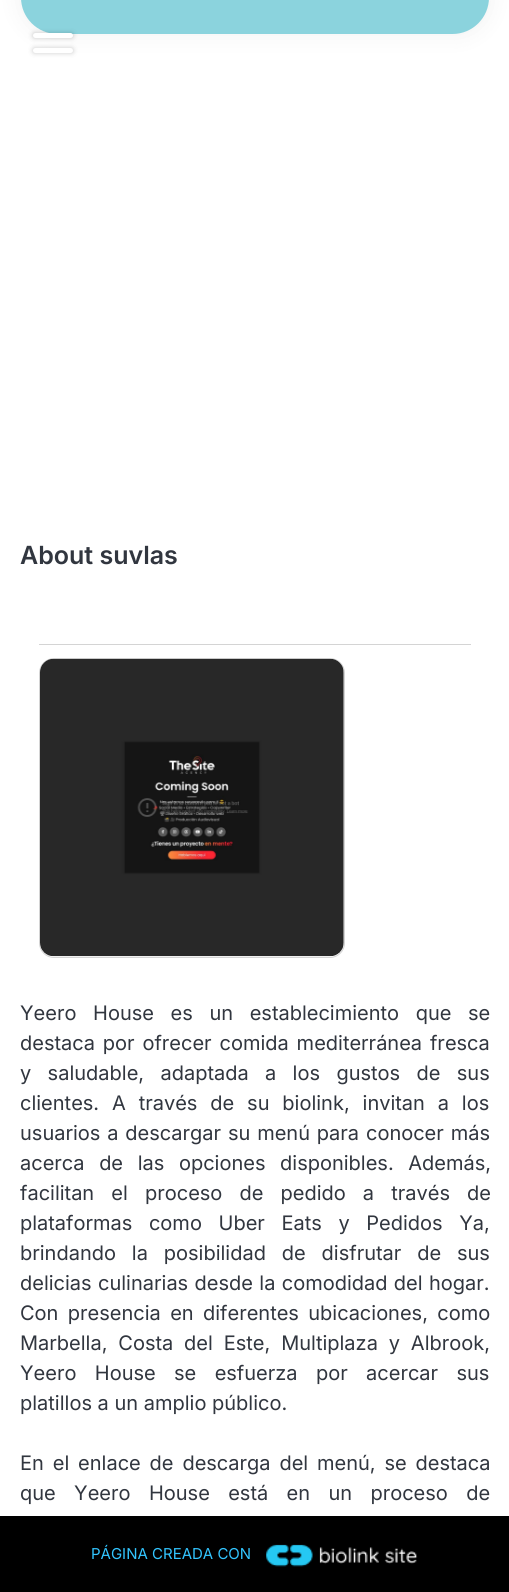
#include <cairo.h>
#include <math.h>
#include <stddef.h>

static cairo_t *ctx;

static void use_color(int r, int g, int b) {
    cairo_set_source_rgb(ctx, r / 255.0, g / 255.0, b / 255.0);
}

static void spaced_text(double x, double y, const char *s, double letter, double word) {
    cairo_move_to(ctx, x, y);
    while (*s) {
        char ch[5] = {0};
        int n = 0;
        do ch[n++] = *s++; while ((*s & 0xC0) == 0x80);
        cairo_show_text(ctx, ch);
        cairo_rel_move_to(ctx, letter + word * (*ch == ' '), 0);
    }
}

static void round_rect(double x, double y, double w, double h, double r) {
    cairo_new_sub_path(ctx);
    cairo_arc(ctx, x + w - r, y + h - r, r, 0, M_PI / 2);
    cairo_arc(ctx, x + r, y + h - r, r, M_PI / 2, M_PI);
    cairo_arc(ctx, x + r, y + r, r, M_PI, 1.5 * M_PI);
    cairo_arc(ctx, x + w - r, y + r, r, 1.5 * M_PI, 2 * M_PI);
    cairo_close_path(ctx);
}

static void shadow(double x, double y, double w, double h, double r, double blur, double alpha) {
    cairo_push_group_with_content(ctx, CAIRO_CONTENT_ALPHA);
    cairo_set_operator(ctx, CAIRO_OPERATOR_SOURCE);
    for (int i = 15; i >= -15 && fmin(w, h) + blur * i / 3 > 0; i -= 2) {
        double e = blur * i / 6;
        cairo_set_source_rgba(ctx, 0, 0, 0, alpha * erfc((i - 1) / 8.5) / 2);
        round_rect(x - e, y - e, w + 2 * e, h + 2 * e, fmax(0, fmin(r + e + blur * .6, fmin(w, h) / 2 + e)));
        cairo_fill(ctx);
    }
    cairo_pattern_t *soft = cairo_pop_group(ctx);
    cairo_mask(ctx, soft);
    cairo_pattern_destroy(soft);
}

static void picture(const char *path, double x, double y, double w, double h) {
    cairo_surface_t *image = cairo_image_surface_create_from_png(path);
    cairo_save(ctx);
    cairo_set_source_surface(ctx, image, x, y);
    cairo_rectangle(ctx, x, y, w, h);
    cairo_fill(ctx);
    cairo_restore(ctx);
    cairo_surface_destroy(image);
}

int main(void) {
    cairo_surface_t *surface = cairo_image_surface_create(CAIRO_FORMAT_RGB24, 509, 1592);
    ctx = cairo_create(surface);
    cairo_font_options_t *options = cairo_font_options_create();
    cairo_font_options_set_hint_metrics(options, CAIRO_HINT_METRICS_OFF);
    cairo_font_options_set_hint_style(options, CAIRO_HINT_STYLE_NONE);
    cairo_set_font_options(ctx, options);
    cairo_set_miter_limit(ctx, 4);
    use_color(255, 255, 255);
    cairo_paint(ctx);
    use_color(0, 0, 0);
    shadow(21, -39, 468, 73, 36.5, 12.5, 0.06);
    use_color(139, 211, 221);
    round_rect(21, -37, 468, 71, 36.5);
    cairo_fill(ctx);
    use_color(0, 0, 0);
    shadow(33, 33, 40, 5, 2.5, 2.5, 0.2);
    use_color(255, 255, 255);
    round_rect(33, 33, 40, 5, 2.5);
    cairo_fill(ctx);
    use_color(0, 0, 0);
    shadow(33, 48, 40, 5, 2.5, 2.5, 0.2);
    use_color(255, 255, 255);
    round_rect(33, 48, 40, 5, 2.5);
    cairo_fill(ctx);
    cairo_select_font_face(ctx, "Inter SemiBold", CAIRO_FONT_SLANT_NORMAL, CAIRO_FONT_WEIGHT_NORMAL);
    cairo_set_font_size(ctx, 25);
    use_color(49, 54, 63);
    cairo_move_to(ctx, 20, 564);
    cairo_show_text(ctx, "About suvlas");
    use_color(212, 212, 212);
    cairo_rectangle(ctx, 39, 644, 432, 1);
    cairo_fill(ctx);
    round_rect(39.5, 658.5, 305, 299, 14.5);
    cairo_set_line_width(ctx, 1);
    cairo_stroke(ctx);
    picture("img1.png", 40, 658, 304, 299);
    cairo_select_font_face(ctx, "Inter", CAIRO_FONT_SLANT_NORMAL, CAIRO_FONT_WEIGHT_NORMAL);
    cairo_set_font_size(ctx, 20);
    use_color(49, 54, 63);
    spaced_text(20, 1020, "Yeero House es un establecimiento que se", 0, 11);
    spaced_text(20, 1050, "destaca por ofrecer comida mediterránea fresca", 0, 2.25);
    spaced_text(20, 1080, "y saludable, adaptada a los gustos de sus", 0, 10.75);
    spaced_text(20, 1110, "clientes. A través de su biolink, invitan a los", 0, 7.25);
    spaced_text(20, 1140, "usuarios a descargar su menú para conocer más", 0, 1.25);
    spaced_text(20, 1170, "acerca de las opciones disponibles. Además,", 0, 9);
    spaced_text(20, 1200, "facilitan el proceso de pedido a través de", 0, 11.5);
    spaced_text(20, 1230, "plataformas como Uber Eats y Pedidos Ya,", 0, 11);
    spaced_text(20, 1260, "brindando la posibilidad de disfrutar de sus", 0, 10.25);
    spaced_text(20, 1290, "delicias culinarias desde la comodidad del hogar.", 0, 0.75);
    spaced_text(20, 1320, "Con presencia en diferentes ubicaciones, como", 0, 3.75);
    spaced_text(20, 1350, "Marbella, Costa del Este, Multiplaza y Albrook,", 0, 5.25);
    spaced_text(20, 1380, "Yeero House se esfuerza por acercar sus", 0, 12.75);
    cairo_move_to(ctx, 20, 1410);
    cairo_show_text(ctx, "platillos a un amplio público.");
    spaced_text(20, 1470, "En el enlace de descarga del menú, se destaca", 0, 3.25);
    spaced_text(20, 1500, "que Yeero House está en un proceso de", 0, 12.75);
    use_color(0, 0, 0);
    cairo_rectangle(ctx, 0, 1516, 509, 76);
    cairo_fill(ctx);
    cairo_set_font_size(ctx, 15);
    use_color(50, 197, 255);
    cairo_move_to(ctx, 91, 1559);
    cairo_show_text(ctx, "PÁGINA CREADA CON");
    picture("img2.png", 266, 1544, 152, 23);
    cairo_surface_write_to_png(surface, "result.png");
    cairo_font_options_destroy(options);
    cairo_destroy(ctx);
    cairo_surface_destroy(surface);
    return 0;
}
